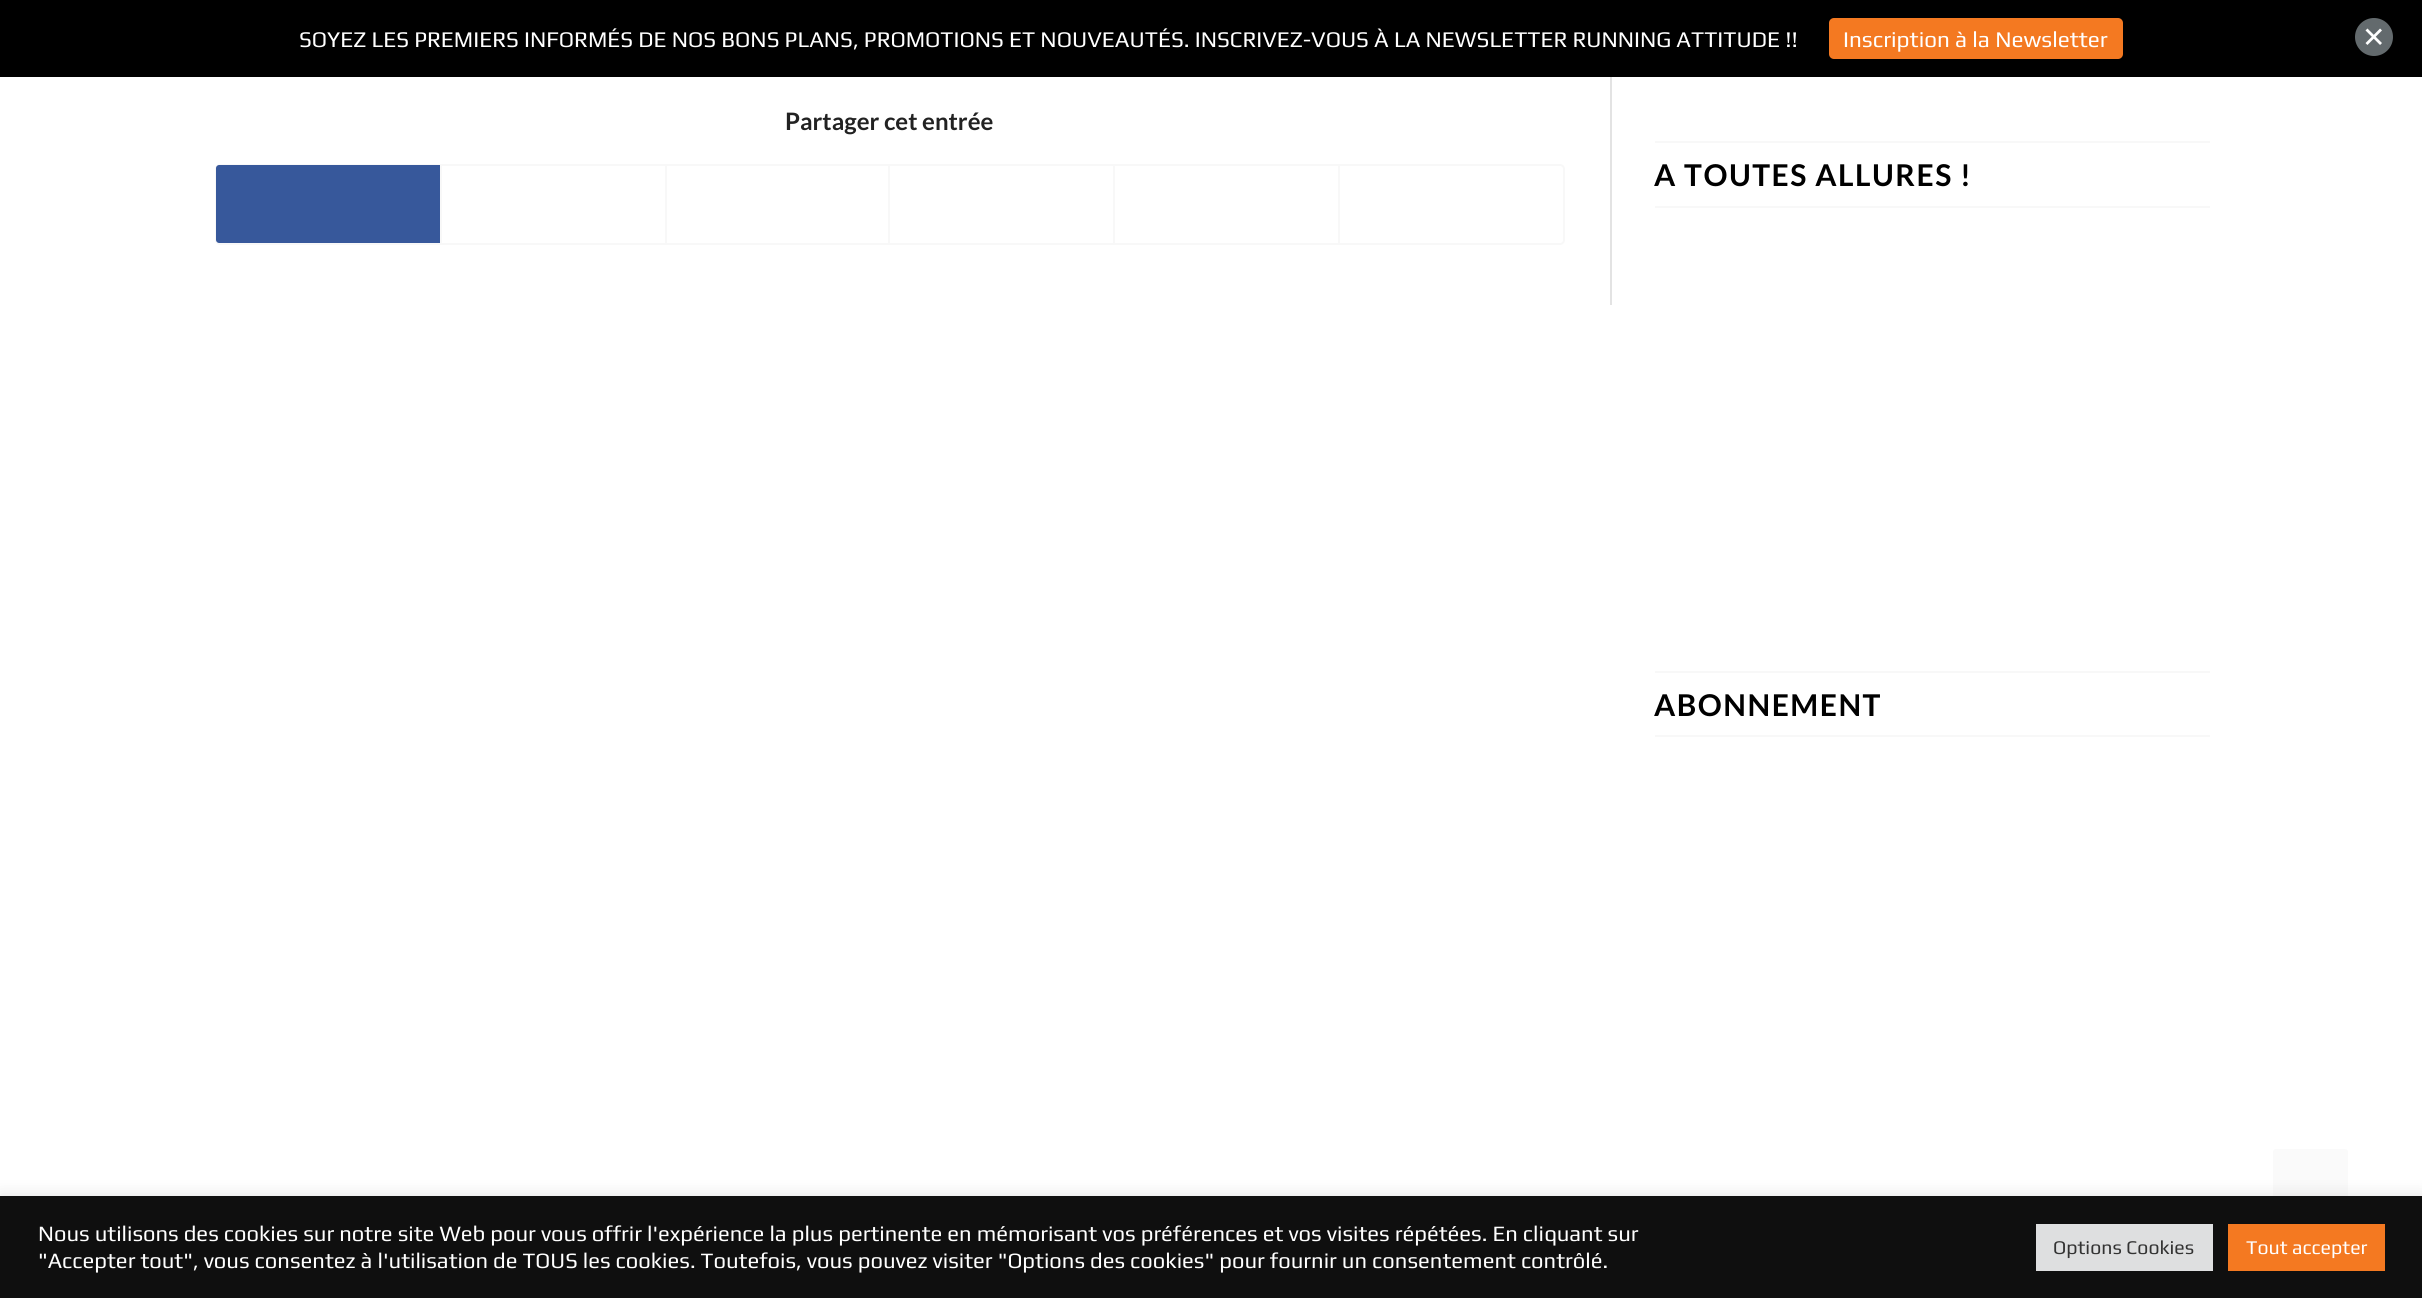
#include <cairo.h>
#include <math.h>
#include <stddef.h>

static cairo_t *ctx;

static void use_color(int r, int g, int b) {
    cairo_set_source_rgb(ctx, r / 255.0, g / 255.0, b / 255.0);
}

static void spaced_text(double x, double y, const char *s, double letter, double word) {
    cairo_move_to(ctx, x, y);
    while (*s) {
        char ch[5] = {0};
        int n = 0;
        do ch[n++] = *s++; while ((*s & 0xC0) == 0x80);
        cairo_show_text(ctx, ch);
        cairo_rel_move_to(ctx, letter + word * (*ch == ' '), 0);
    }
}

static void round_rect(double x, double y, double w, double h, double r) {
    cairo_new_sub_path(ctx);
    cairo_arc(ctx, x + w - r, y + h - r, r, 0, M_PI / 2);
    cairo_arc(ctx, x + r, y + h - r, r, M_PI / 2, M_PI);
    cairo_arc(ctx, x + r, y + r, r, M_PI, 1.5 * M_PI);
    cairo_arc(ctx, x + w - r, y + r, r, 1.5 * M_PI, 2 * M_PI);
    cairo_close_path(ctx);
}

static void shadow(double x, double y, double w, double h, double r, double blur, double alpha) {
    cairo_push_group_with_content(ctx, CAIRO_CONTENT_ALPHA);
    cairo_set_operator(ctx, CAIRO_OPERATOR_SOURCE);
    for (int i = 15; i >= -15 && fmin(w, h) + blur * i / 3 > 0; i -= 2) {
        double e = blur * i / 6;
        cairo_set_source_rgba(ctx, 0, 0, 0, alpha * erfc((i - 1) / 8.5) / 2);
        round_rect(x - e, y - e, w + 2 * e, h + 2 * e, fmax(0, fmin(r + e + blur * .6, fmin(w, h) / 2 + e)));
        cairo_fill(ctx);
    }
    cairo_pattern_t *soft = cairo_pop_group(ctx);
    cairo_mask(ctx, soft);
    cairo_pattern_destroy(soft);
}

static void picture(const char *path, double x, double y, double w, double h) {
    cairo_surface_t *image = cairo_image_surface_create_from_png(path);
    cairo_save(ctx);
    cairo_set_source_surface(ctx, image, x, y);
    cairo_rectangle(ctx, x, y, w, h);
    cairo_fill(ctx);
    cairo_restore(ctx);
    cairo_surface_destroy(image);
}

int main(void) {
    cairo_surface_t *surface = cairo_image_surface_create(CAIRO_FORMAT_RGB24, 2422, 1298);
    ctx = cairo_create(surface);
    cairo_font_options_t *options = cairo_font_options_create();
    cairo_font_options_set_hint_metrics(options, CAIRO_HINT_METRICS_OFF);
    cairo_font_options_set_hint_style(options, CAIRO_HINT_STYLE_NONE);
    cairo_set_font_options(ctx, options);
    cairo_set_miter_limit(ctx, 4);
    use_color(255, 255, 255);
    cairo_paint(ctx);
    use_color(0, 0, 0);
    cairo_rectangle(ctx, 0, 0, 2422, 77);
    cairo_fill(ctx);
    cairo_select_font_face(ctx, "Play", CAIRO_FONT_SLANT_NORMAL, CAIRO_FONT_WEIGHT_NORMAL);
    cairo_set_font_size(ctx, 22.5);
    use_color(255, 255, 255);
    cairo_move_to(ctx, 299, 47);
    cairo_show_text(ctx, "SOYEZ LES PREMIERS INFORMÉS DE NOS BONS PLANS, PROMOTIONS ET NOUVEAUTÉS. INSCRIVEZ-VOUS À LA NEWSLETTER RUNNING ATTITUDE !!");
    use_color(244, 121, 33);
    round_rect(1829, 18, 294, 41, 5);
    cairo_fill(ctx);
    use_color(255, 255, 255);
    cairo_move_to(ctx, 1843, 47);
    cairo_show_text(ctx, "Inscription à la Newsletter");
    use_color(99, 106, 109);
    cairo_new_path(ctx);
    cairo_arc(ctx, 2374, 37, 19, 0, 2 * M_PI);
    cairo_fill(ctx);
    picture("img1.png", 2365, 28, 17, 17);
    use_color(227, 227, 227);
    cairo_rectangle(ctx, 1610, 77, 2, 228);
    cairo_fill(ctx);
    cairo_select_font_face(ctx, "Lato", CAIRO_FONT_SLANT_NORMAL, CAIRO_FONT_WEIGHT_BOLD);
    cairo_set_font_size(ctx, 24);
    use_color(34, 34, 34);
    cairo_move_to(ctx, 785, 130);
    cairo_show_text(ctx, "Partager cet entrée");
    round_rect(216, 165, 1348, 79, 4);
    use_color(248, 248, 248);
    cairo_stroke(ctx);
    use_color(55, 88, 155);
    cairo_new_path(ctx);
    cairo_move_to(ctx, 219, 165);
    cairo_line_to(ctx, 440, 165);
    cairo_line_to(ctx, 440, 243);
    cairo_line_to(ctx, 219, 243);
    cairo_curve_to(ctx, 217.5, 243, 216, 241.5, 216, 240);
    cairo_line_to(ctx, 216, 168);
    cairo_curve_to(ctx, 216, 166.5, 217.5, 165, 219, 165);
    cairo_close_path(ctx);
    cairo_fill(ctx);
    use_color(248, 248, 248);
    cairo_rectangle(ctx, 440, 165, 2, 78);
    cairo_fill(ctx);
    cairo_rectangle(ctx, 665, 165, 2, 78);
    cairo_fill(ctx);
    cairo_rectangle(ctx, 888, 165, 2, 78);
    cairo_fill(ctx);
    cairo_rectangle(ctx, 1113, 165, 2, 78);
    cairo_fill(ctx);
    cairo_rectangle(ctx, 1338, 165, 2, 78);
    cairo_fill(ctx);
    cairo_rectangle(ctx, 1655, 141, 555, 2);
    cairo_fill(ctx);
    cairo_rectangle(ctx, 1655, 206, 555, 2);
    cairo_fill(ctx);
    cairo_set_font_size(ctx, 30);
    use_color(0, 0, 0);
    spaced_text(1654, 186, "A TOUTES ALLURES !", 1.5, 0);
    use_color(248, 248, 248);
    cairo_rectangle(ctx, 1655, 671, 555, 2);
    cairo_fill(ctx);
    cairo_rectangle(ctx, 1655, 735, 555, 2);
    cairo_fill(ctx);
    use_color(0, 0, 0);
    spaced_text(1654, 716, "ABONNEMENT", 1.5, 0);
    use_color(250, 250, 250);
    round_rect(2273, 1149, 75, 75, 3);
    cairo_fill(ctx);
    use_color(172, 171, 171);
    shadow(0, 1194, 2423, 104, 0, 7.5, 0.3);
    use_color(15, 15, 15);
    cairo_rectangle(ctx, 0, 1196, 2422, 102);
    cairo_fill(ctx);
    cairo_select_font_face(ctx, "Play", CAIRO_FONT_SLANT_NORMAL, CAIRO_FONT_WEIGHT_NORMAL);
    cairo_set_font_size(ctx, 22);
    use_color(255, 255, 255);
    cairo_move_to(ctx, 38, 1241);
    cairo_show_text(ctx, "Nous utilisons des cookies sur notre site Web pour vous offrir l'expérience la plus pertinente en mémorisant vos préférences et vos visites répétées. En cliquant sur");
    cairo_move_to(ctx, 38, 1268);
    cairo_show_text(ctx, "\"Accepter tout\", vous consentez à l'utilisation de TOUS les cookies. Toutefois, vous pouvez visiter \"Options des cookies\" pour fournir un consentement contrôlé.");
    use_color(222, 223, 224);
    cairo_rectangle(ctx, 2036, 1224, 177, 47);
    cairo_fill(ctx);
    cairo_set_font_size(ctx, 19.5);
    use_color(51, 51, 51);
    cairo_move_to(ctx, 2053, 1254);
    cairo_show_text(ctx, "Options Cookies");
    use_color(244, 121, 33);
    cairo_rectangle(ctx, 2228, 1224, 157, 47);
    cairo_fill(ctx);
    use_color(255, 255, 255);
    cairo_move_to(ctx, 2246, 1254);
    cairo_show_text(ctx, "Tout accepter");
    cairo_surface_write_to_png(surface, "result.png");
    cairo_font_options_destroy(options);
    cairo_destroy(ctx);
    cairo_surface_destroy(surface);
    return 0;
}
